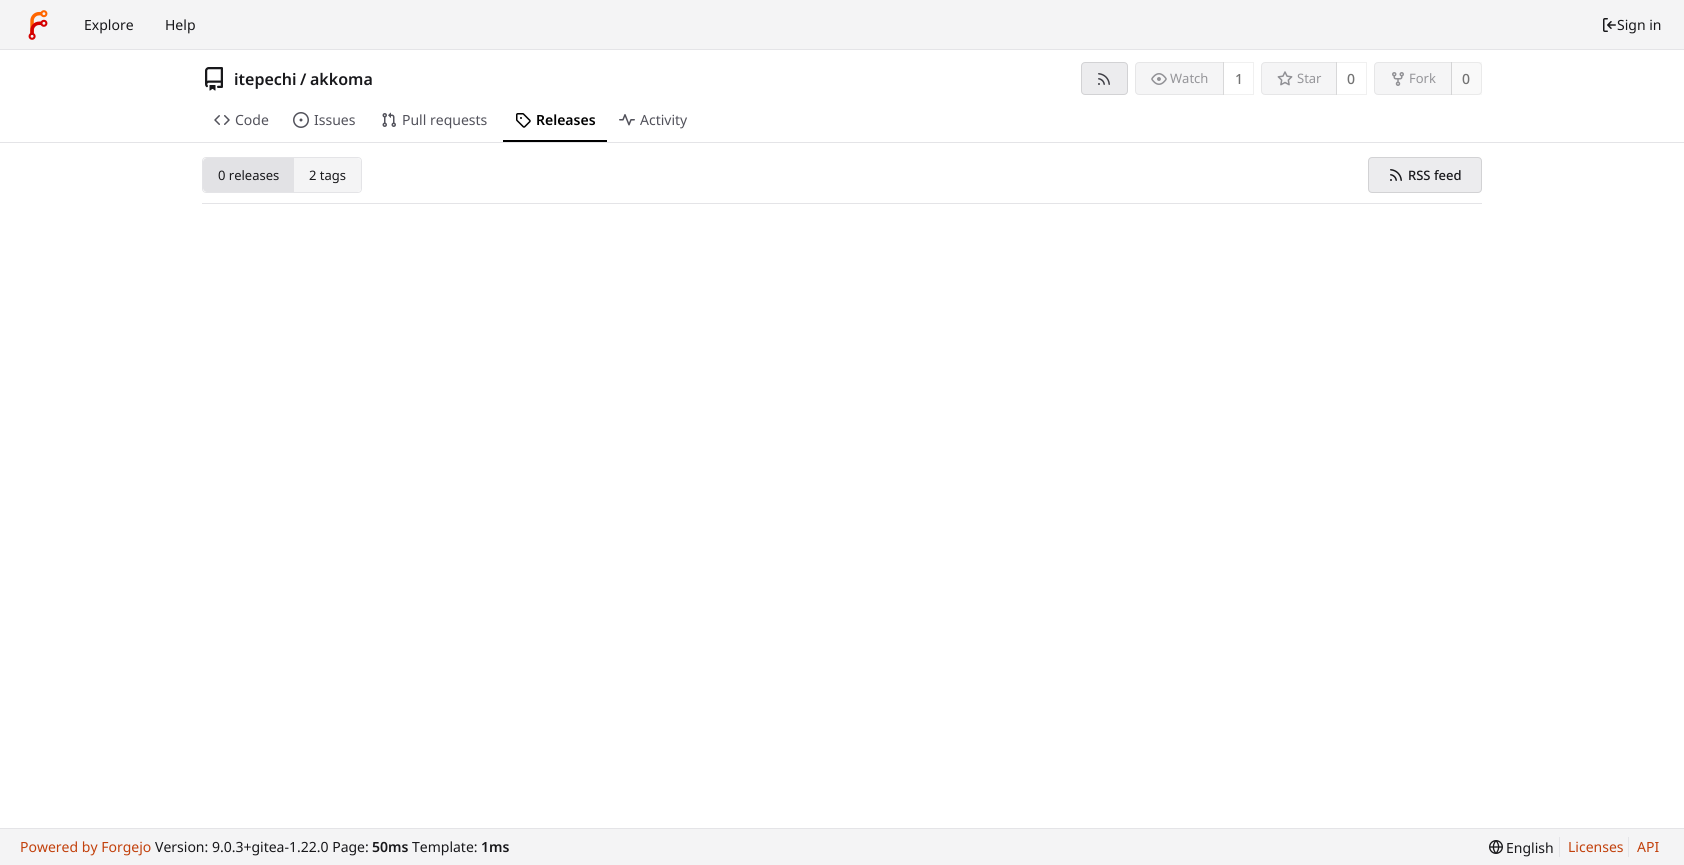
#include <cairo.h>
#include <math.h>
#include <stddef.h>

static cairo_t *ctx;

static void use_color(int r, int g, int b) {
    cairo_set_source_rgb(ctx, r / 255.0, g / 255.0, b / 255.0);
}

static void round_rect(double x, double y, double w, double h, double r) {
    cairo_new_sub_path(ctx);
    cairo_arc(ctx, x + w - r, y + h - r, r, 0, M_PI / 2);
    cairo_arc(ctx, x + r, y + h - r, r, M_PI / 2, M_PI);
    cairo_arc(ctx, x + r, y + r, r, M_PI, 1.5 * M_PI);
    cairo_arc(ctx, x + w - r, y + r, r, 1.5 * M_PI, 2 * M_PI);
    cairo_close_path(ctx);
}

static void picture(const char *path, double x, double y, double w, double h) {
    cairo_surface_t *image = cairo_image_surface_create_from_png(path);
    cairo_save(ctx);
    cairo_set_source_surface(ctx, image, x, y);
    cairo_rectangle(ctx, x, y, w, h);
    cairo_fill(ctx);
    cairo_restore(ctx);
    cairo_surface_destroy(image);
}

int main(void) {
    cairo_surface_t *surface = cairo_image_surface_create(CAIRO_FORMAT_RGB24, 1684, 865);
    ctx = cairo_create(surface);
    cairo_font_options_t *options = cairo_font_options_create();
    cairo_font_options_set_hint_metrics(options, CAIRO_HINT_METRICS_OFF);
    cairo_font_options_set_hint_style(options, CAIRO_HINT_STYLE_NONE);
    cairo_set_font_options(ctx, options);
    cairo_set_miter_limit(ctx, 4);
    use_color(255, 255, 255);
    cairo_paint(ctx);
    use_color(244, 244, 245);
    cairo_rectangle(ctx, 0, 0, 1684, 49);
    cairo_fill(ctx);
    use_color(228, 228, 231);
    cairo_rectangle(ctx, 0, 49, 1684, 1);
    cairo_fill(ctx);
    picture("img1.png", 28, 10, 20, 30);
    cairo_select_font_face(ctx, "Noto Sans", CAIRO_FONT_SLANT_NORMAL, CAIRO_FONT_WEIGHT_NORMAL);
    cairo_set_font_size(ctx, 14);
    use_color(24, 24, 27);
    cairo_move_to(ctx, 84, 30);
    cairo_show_text(ctx, "Explore");
    cairo_move_to(ctx, 165, 30);
    cairo_show_text(ctx, "Help");
    picture("img2.png", 1603, 18, 13, 14);
    cairo_move_to(ctx, 1617, 30);
    cairo_show_text(ctx, "Sign in");
    picture("img3.png", 205, 67, 18, 24);
    cairo_select_font_face(ctx, "Noto Sans SemiBold", CAIRO_FONT_SLANT_NORMAL, CAIRO_FONT_WEIGHT_NORMAL);
    cairo_set_font_size(ctx, 16);
    cairo_move_to(ctx, 234, 85);
    cairo_show_text(ctx, "itepechi");
    cairo_move_to(ctx, 300, 85);
    cairo_show_text(ctx, "/");
    cairo_move_to(ctx, 310, 85);
    cairo_show_text(ctx, "akkoma");
    use_color(236, 236, 238);
    round_rect(1081, 62, 47, 33, 4);
    cairo_fill(ctx);
    round_rect(1081.5, 62.5, 46, 32, 3.5);
    cairo_set_source_rgba(ctx, 0, 0, 0, 0.11);
    cairo_set_line_width(ctx, 1);
    cairo_stroke(ctx);
    picture("img4.png", 1098, 73, 12, 12);
    use_color(245, 245, 246);
    cairo_new_path(ctx);
    cairo_move_to(ctx, 1139, 62);
    cairo_line_to(ctx, 1224, 62);
    cairo_line_to(ctx, 1224, 95);
    cairo_line_to(ctx, 1139, 95);
    cairo_curve_to(ctx, 1137, 95, 1135, 93, 1135, 91);
    cairo_line_to(ctx, 1135, 66);
    cairo_curve_to(ctx, 1135, 64, 1137, 62, 1139, 62);
    cairo_close_path(ctx);
    cairo_fill(ctx);
    cairo_new_path(ctx);
    cairo_move_to(ctx, 1139, 62.5);
    cairo_line_to(ctx, 1223.5, 62.5);
    cairo_line_to(ctx, 1223.5, 94.5);
    cairo_line_to(ctx, 1139, 94.5);
    cairo_curve_to(ctx, 1137, 94.5, 1135.5, 93, 1135.5, 91);
    cairo_line_to(ctx, 1135.5, 66);
    cairo_curve_to(ctx, 1135.5, 64, 1137, 62.5, 1139, 62.5);
    cairo_close_path(ctx);
    cairo_set_source_rgba(ctx, 0.451, 0.451, 0.451, 0.11);
    cairo_stroke(ctx);
    picture("img5.png", 1151, 73, 16, 12);
    cairo_select_font_face(ctx, "Noto Sans", CAIRO_FONT_SLANT_NORMAL, CAIRO_FONT_WEIGHT_NORMAL);
    cairo_set_font_size(ctx, 13);
    use_color(149, 149, 153);
    cairo_move_to(ctx, 1170, 83);
    cairo_show_text(ctx, "Watch");
    cairo_rectangle(ctx, 1223.5, 62.5, 30, 32);
    cairo_set_source_rgba(ctx, 0, 0, 0, 0.06);
    cairo_stroke(ctx);
    cairo_select_font_face(ctx, "Noto Sans Medium", CAIRO_FONT_SLANT_NORMAL, CAIRO_FONT_WEIGHT_NORMAL);
    cairo_set_font_size(ctx, 14);
    use_color(115, 115, 115);
    cairo_move_to(ctx, 1235, 84);
    cairo_show_text(ctx, "1");
    use_color(245, 245, 246);
    cairo_new_path(ctx);
    cairo_move_to(ctx, 1265, 62);
    cairo_line_to(ctx, 1337, 62);
    cairo_line_to(ctx, 1337, 95);
    cairo_line_to(ctx, 1265, 95);
    cairo_curve_to(ctx, 1263, 95, 1261, 93, 1261, 91);
    cairo_line_to(ctx, 1261, 66);
    cairo_curve_to(ctx, 1261, 64, 1263, 62, 1265, 62);
    cairo_close_path(ctx);
    cairo_fill(ctx);
    cairo_new_path(ctx);
    cairo_move_to(ctx, 1265, 62.5);
    cairo_line_to(ctx, 1336.5, 62.5);
    cairo_line_to(ctx, 1336.5, 94.5);
    cairo_line_to(ctx, 1265, 94.5);
    cairo_curve_to(ctx, 1263, 94.5, 1261.5, 93, 1261.5, 91);
    cairo_line_to(ctx, 1261.5, 66);
    cairo_curve_to(ctx, 1261.5, 64, 1263, 62.5, 1265, 62.5);
    cairo_close_path(ctx);
    cairo_set_source_rgba(ctx, 0.451, 0.451, 0.451, 0.11);
    cairo_stroke(ctx);
    picture("img6.png", 1277, 71, 16, 15);
    cairo_select_font_face(ctx, "Noto Sans", CAIRO_FONT_SLANT_NORMAL, CAIRO_FONT_WEIGHT_NORMAL);
    cairo_set_font_size(ctx, 13);
    use_color(149, 149, 153);
    cairo_move_to(ctx, 1297, 83);
    cairo_show_text(ctx, "Star");
    cairo_rectangle(ctx, 1336.5, 62.5, 30, 32);
    cairo_set_source_rgba(ctx, 0, 0, 0, 0.06);
    cairo_stroke(ctx);
    cairo_select_font_face(ctx, "Noto Sans Medium", CAIRO_FONT_SLANT_NORMAL, CAIRO_FONT_WEIGHT_NORMAL);
    cairo_set_font_size(ctx, 14);
    use_color(115, 115, 115);
    cairo_move_to(ctx, 1347, 84);
    cairo_show_text(ctx, "0");
    use_color(245, 245, 246);
    cairo_new_path(ctx);
    cairo_move_to(ctx, 1378, 62);
    cairo_line_to(ctx, 1452, 62);
    cairo_line_to(ctx, 1452, 95);
    cairo_line_to(ctx, 1378, 95);
    cairo_curve_to(ctx, 1376, 95, 1374, 93, 1374, 91);
    cairo_line_to(ctx, 1374, 66);
    cairo_curve_to(ctx, 1374, 64, 1376, 62, 1378, 62);
    cairo_close_path(ctx);
    cairo_fill(ctx);
    cairo_new_path(ctx);
    cairo_move_to(ctx, 1378, 62.5);
    cairo_line_to(ctx, 1451.5, 62.5);
    cairo_line_to(ctx, 1451.5, 94.5);
    cairo_line_to(ctx, 1378, 94.5);
    cairo_curve_to(ctx, 1376, 94.5, 1374.5, 93, 1374.5, 91);
    cairo_line_to(ctx, 1374.5, 66);
    cairo_curve_to(ctx, 1374.5, 64, 1376, 62.5, 1378, 62.5);
    cairo_close_path(ctx);
    cairo_set_source_rgba(ctx, 0.451, 0.451, 0.451, 0.11);
    cairo_stroke(ctx);
    picture("img7.png", 1392, 72, 12, 14);
    cairo_select_font_face(ctx, "Noto Sans", CAIRO_FONT_SLANT_NORMAL, CAIRO_FONT_WEIGHT_NORMAL);
    cairo_set_font_size(ctx, 13);
    use_color(149, 149, 153);
    cairo_move_to(ctx, 1409, 83);
    cairo_show_text(ctx, "Fork");
    cairo_set_source_rgba(ctx, 0.451, 0.451, 0.451, 0.04);
    cairo_rectangle(ctx, 1451, 62, 31, 33);
    cairo_fill(ctx);
    cairo_new_path(ctx);
    cairo_move_to(ctx, 1451.5, 62.5);
    cairo_line_to(ctx, 1478, 62.5);
    cairo_curve_to(ctx, 1480, 62.5, 1481.5, 64, 1481.5, 66);
    cairo_line_to(ctx, 1481.5, 91);
    cairo_curve_to(ctx, 1481.5, 93, 1480, 94.5, 1478, 94.5);
    cairo_line_to(ctx, 1451.5, 94.5);
    cairo_close_path(ctx);
    cairo_set_source_rgba(ctx, 0.451, 0.451, 0.451, 0.11);
    cairo_stroke(ctx);
    cairo_select_font_face(ctx, "Noto Sans Medium", CAIRO_FONT_SLANT_NORMAL, CAIRO_FONT_WEIGHT_NORMAL);
    cairo_set_font_size(ctx, 14);
    use_color(115, 115, 115);
    cairo_move_to(ctx, 1462, 84);
    cairo_show_text(ctx, "0");
    picture("img8.png", 214, 115, 16, 10);
    cairo_select_font_face(ctx, "Noto Sans", CAIRO_FONT_SLANT_NORMAL, CAIRO_FONT_WEIGHT_NORMAL);
    use_color(82, 82, 91);
    cairo_move_to(ctx, 235, 125);
    cairo_show_text(ctx, "Code");
    picture("img9.png", 293, 112, 16, 16);
    cairo_move_to(ctx, 314, 125);
    cairo_show_text(ctx, "Issues");
    picture("img10.png", 382, 112, 14, 15);
    cairo_move_to(ctx, 402, 125);
    cairo_show_text(ctx, "Pull requests");
    use_color(0, 0, 0);
    cairo_rectangle(ctx, 503, 140, 104, 2);
    cairo_fill(ctx);
    picture("img11.png", 516, 113, 15, 15);
    cairo_select_font_face(ctx, "Noto Sans SemiBold", CAIRO_FONT_SLANT_NORMAL, CAIRO_FONT_WEIGHT_NORMAL);
    cairo_move_to(ctx, 536, 125);
    cairo_show_text(ctx, "Releases");
    picture("img12.png", 619, 114, 16, 12);
    cairo_select_font_face(ctx, "Noto Sans", CAIRO_FONT_SLANT_NORMAL, CAIRO_FONT_WEIGHT_NORMAL);
    use_color(82, 82, 91);
    cairo_move_to(ctx, 640, 125);
    cairo_show_text(ctx, "Activity");
    use_color(228, 228, 231);
    cairo_rectangle(ctx, 0, 142, 1684, 1);
    cairo_fill(ctx);
    round_rect(202.5, 157.5, 159, 35, 3.5);
    cairo_stroke(ctx);
    cairo_set_source_rgba(ctx, 0.831, 0.831, 0.847, 0.67);
    cairo_new_path(ctx);
    cairo_move_to(ctx, 207, 158);
    cairo_line_to(ctx, 294, 158);
    cairo_line_to(ctx, 294, 192);
    cairo_line_to(ctx, 207, 192);
    cairo_curve_to(ctx, 205, 192, 203, 190, 203, 188);
    cairo_line_to(ctx, 203, 162);
    cairo_curve_to(ctx, 203, 160, 205, 158, 207, 158);
    cairo_close_path(ctx);
    cairo_fill(ctx);
    cairo_set_font_size(ctx, 13);
    use_color(24, 24, 27);
    cairo_move_to(ctx, 218, 180);
    cairo_show_text(ctx, "0 releases");
    use_color(244, 244, 245);
    cairo_new_path(ctx);
    cairo_move_to(ctx, 294, 158);
    cairo_line_to(ctx, 357, 158);
    cairo_curve_to(ctx, 359, 158, 361, 160, 361, 162);
    cairo_line_to(ctx, 361, 188);
    cairo_curve_to(ctx, 361, 190, 359, 192, 357, 192);
    cairo_line_to(ctx, 294, 192);
    cairo_close_path(ctx);
    cairo_fill(ctx);
    use_color(24, 24, 27);
    cairo_move_to(ctx, 309, 180);
    cairo_show_text(ctx, "2 tags");
    use_color(236, 236, 238);
    round_rect(1368, 157, 114, 36, 4);
    cairo_fill(ctx);
    round_rect(1368.5, 157.5, 113, 35, 3.5);
    cairo_set_source_rgba(ctx, 0, 0, 0, 0.11);
    cairo_stroke(ctx);
    picture("img13.png", 1390, 169, 12, 12);
    cairo_select_font_face(ctx, "Noto Sans Medium", CAIRO_FONT_SLANT_NORMAL, CAIRO_FONT_WEIGHT_NORMAL);
    use_color(24, 24, 27);
    cairo_move_to(ctx, 1408, 180);
    cairo_show_text(ctx, "RSS feed");
    use_color(228, 228, 231);
    cairo_rectangle(ctx, 202, 203, 1280, 1);
    cairo_fill(ctx);
    use_color(244, 244, 245);
    cairo_rectangle(ctx, 0, 829, 1684, 36);
    cairo_fill(ctx);
    use_color(228, 228, 231);
    cairo_rectangle(ctx, 0, 828, 1684, 1);
    cairo_fill(ctx);
    cairo_select_font_face(ctx, "Noto Sans", CAIRO_FONT_SLANT_NORMAL, CAIRO_FONT_WEIGHT_NORMAL);
    cairo_set_font_size(ctx, 14);
    use_color(194, 65, 12);
    cairo_move_to(ctx, 20, 852);
    cairo_show_text(ctx, "Powered by Forgejo");
    use_color(24, 24, 27);
    cairo_move_to(ctx, 155, 852);
    cairo_show_text(ctx, "Version: 9.0.3+gitea-1.22.0 Page:");
    cairo_select_font_face(ctx, "Noto Sans SemiBold", CAIRO_FONT_SLANT_NORMAL, CAIRO_FONT_WEIGHT_NORMAL);
    cairo_move_to(ctx, 372, 852);
    cairo_show_text(ctx, "50ms");
    cairo_select_font_face(ctx, "Noto Sans", CAIRO_FONT_SLANT_NORMAL, CAIRO_FONT_WEIGHT_NORMAL);
    cairo_move_to(ctx, 412, 852);
    cairo_show_text(ctx, "Template:");
    cairo_select_font_face(ctx, "Noto Sans SemiBold", CAIRO_FONT_SLANT_NORMAL, CAIRO_FONT_WEIGHT_NORMAL);
    cairo_move_to(ctx, 481, 852);
    cairo_show_text(ctx, "1ms");
    picture("img14.png", 1489, 840, 14, 14);
    cairo_select_font_face(ctx, "Noto Sans", CAIRO_FONT_SLANT_NORMAL, CAIRO_FONT_WEIGHT_NORMAL);
    cairo_move_to(ctx, 1506, 853);
    cairo_show_text(ctx, "English");
    use_color(228, 228, 231);
    cairo_rectangle(ctx, 1559, 837, 1, 20);
    cairo_fill(ctx);
    use_color(194, 65, 12);
    cairo_move_to(ctx, 1568, 852);
    cairo_show_text(ctx, "Licenses");
    use_color(228, 228, 231);
    cairo_rectangle(ctx, 1628, 837, 1, 20);
    cairo_fill(ctx);
    use_color(194, 65, 12);
    cairo_move_to(ctx, 1637, 852);
    cairo_show_text(ctx, "API");
    cairo_surface_write_to_png(surface, "result.png");
    cairo_font_options_destroy(options);
    cairo_destroy(ctx);
    cairo_surface_destroy(surface);
    return 0;
}
